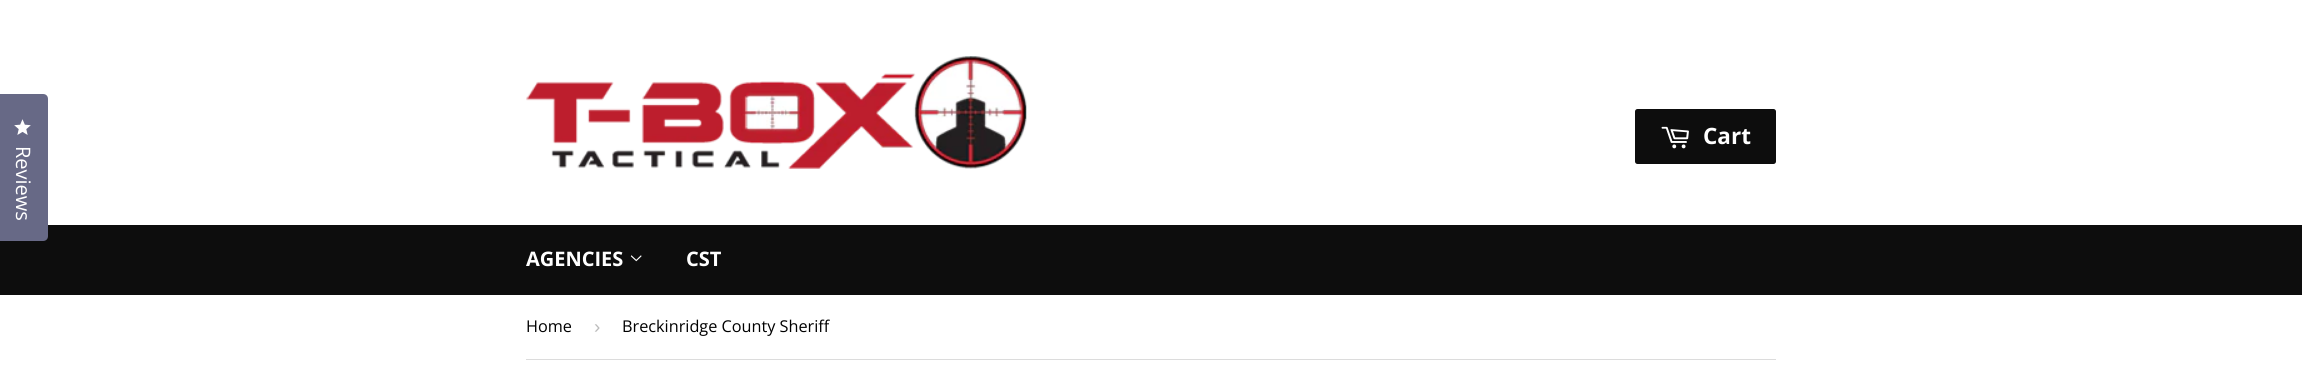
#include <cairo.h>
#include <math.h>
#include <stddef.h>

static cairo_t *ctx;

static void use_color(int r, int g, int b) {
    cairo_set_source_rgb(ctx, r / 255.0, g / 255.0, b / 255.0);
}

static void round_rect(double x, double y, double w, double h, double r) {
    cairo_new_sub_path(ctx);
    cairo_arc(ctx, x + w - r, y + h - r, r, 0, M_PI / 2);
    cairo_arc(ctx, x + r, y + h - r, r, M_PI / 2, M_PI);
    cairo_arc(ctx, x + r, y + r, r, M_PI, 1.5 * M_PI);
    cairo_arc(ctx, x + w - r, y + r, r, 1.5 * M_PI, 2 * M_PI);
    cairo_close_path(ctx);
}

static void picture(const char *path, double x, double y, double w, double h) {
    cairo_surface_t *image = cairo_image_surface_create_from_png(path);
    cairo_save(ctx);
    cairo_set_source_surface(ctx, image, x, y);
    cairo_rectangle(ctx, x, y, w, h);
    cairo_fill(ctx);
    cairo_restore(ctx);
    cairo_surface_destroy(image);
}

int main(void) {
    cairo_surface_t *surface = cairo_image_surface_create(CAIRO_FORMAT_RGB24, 2302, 375);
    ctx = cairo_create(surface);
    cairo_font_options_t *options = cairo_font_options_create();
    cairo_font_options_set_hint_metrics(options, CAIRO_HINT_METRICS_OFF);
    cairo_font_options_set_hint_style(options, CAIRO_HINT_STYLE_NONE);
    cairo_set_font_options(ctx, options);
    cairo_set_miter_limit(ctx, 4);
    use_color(255, 255, 255);
    cairo_paint(ctx);
    picture("img1.png", 526, 56, 501, 113);
    use_color(13, 13, 13);
    round_rect(1635, 109, 141, 55, 2.5);
    cairo_fill(ctx);
    picture("img2.png", 1661, 126, 28, 23);
    cairo_select_font_face(ctx, "Open Sans", CAIRO_FONT_SLANT_NORMAL, CAIRO_FONT_WEIGHT_BOLD);
    cairo_set_font_size(ctx, 22.5);
    use_color(255, 255, 255);
    cairo_move_to(ctx, 1703, 144);
    cairo_show_text(ctx, "Cart");
    use_color(13, 13, 13);
    cairo_rectangle(ctx, 0, 225, 2302, 70);
    cairo_fill(ctx);
    use_color(103, 105, 134);
    cairo_new_path(ctx);
    cairo_move_to(ctx, -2, 94);
    cairo_line_to(ctx, 43, 94);
    cairo_curve_to(ctx, 46, 94, 48, 96, 48, 99);
    cairo_line_to(ctx, 48, 236);
    cairo_curve_to(ctx, 48, 239, 46, 241, 43, 241);
    cairo_line_to(ctx, -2, 241);
    cairo_close_path(ctx);
    cairo_fill(ctx);
    picture("img3.png", 14, 119, 17, 16);
    cairo_select_font_face(ctx, "Open Sans", CAIRO_FONT_SLANT_NORMAL, CAIRO_FONT_WEIGHT_NORMAL);
    cairo_set_font_size(ctx, 20);
    use_color(255, 255, 255);
    cairo_save(ctx);
    cairo_translate(ctx, 16, 146);
    cairo_rotate(ctx, 90.1 * M_PI / 180);
    cairo_move_to(ctx, 0, 0);
    cairo_show_text(ctx, "Reviews");
    cairo_restore(ctx);
    cairo_select_font_face(ctx, "Open Sans", CAIRO_FONT_SLANT_NORMAL, CAIRO_FONT_WEIGHT_BOLD);
    cairo_move_to(ctx, 526, 266);
    cairo_show_text(ctx, "AGENCIES");
    picture("img4.png", 630, 255, 12, 7);
    cairo_move_to(ctx, 686, 266);
    cairo_show_text(ctx, "CST");
    use_color(220, 220, 220);
    cairo_rectangle(ctx, 526, 359, 1250, 1);
    cairo_fill(ctx);
    cairo_select_font_face(ctx, "Open Sans", CAIRO_FONT_SLANT_NORMAL, CAIRO_FONT_WEIGHT_NORMAL);
    cairo_set_font_size(ctx, 16.25);
    use_color(0, 0, 0);
    cairo_move_to(ctx, 526, 332);
    cairo_show_text(ctx, "Home");
    cairo_select_font_face(ctx, "Liberation Sans", CAIRO_FONT_SLANT_NORMAL, CAIRO_FONT_WEIGHT_NORMAL);
    cairo_set_font_size(ctx, 19);
    use_color(187, 187, 187);
    cairo_move_to(ctx, 594, 333);
    cairo_show_text(ctx, "›");
    cairo_select_font_face(ctx, "Open Sans", CAIRO_FONT_SLANT_NORMAL, CAIRO_FONT_WEIGHT_NORMAL);
    cairo_set_font_size(ctx, 16.25);
    use_color(0, 0, 0);
    cairo_move_to(ctx, 622, 332);
    cairo_show_text(ctx, "Breckinridge County Sheriff");
    cairo_surface_write_to_png(surface, "result.png");
    cairo_font_options_destroy(options);
    cairo_destroy(ctx);
    cairo_surface_destroy(surface);
    return 0;
}
